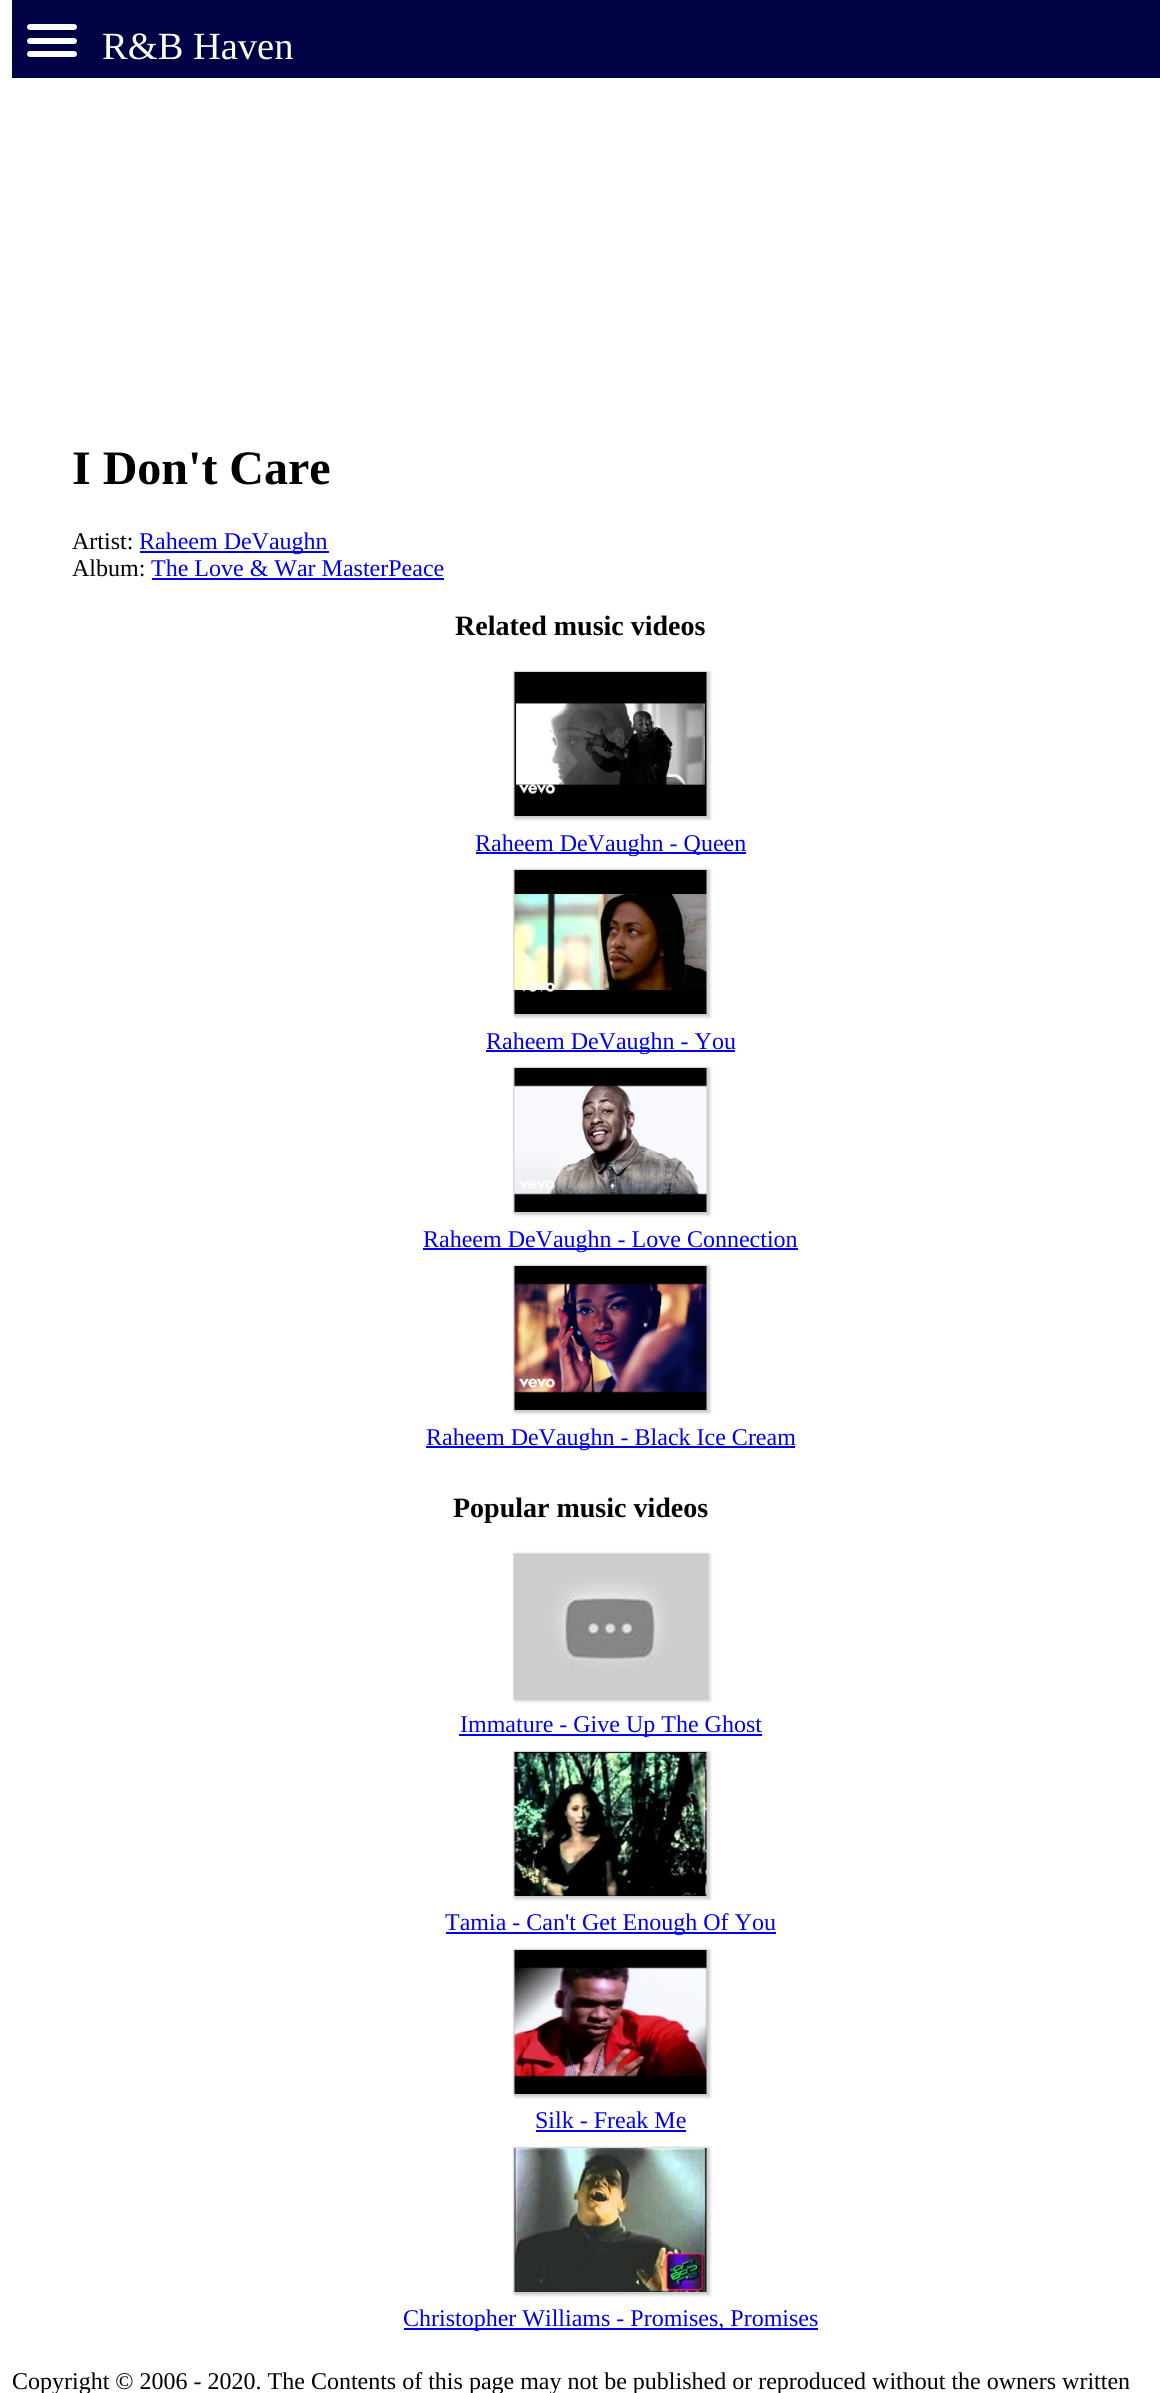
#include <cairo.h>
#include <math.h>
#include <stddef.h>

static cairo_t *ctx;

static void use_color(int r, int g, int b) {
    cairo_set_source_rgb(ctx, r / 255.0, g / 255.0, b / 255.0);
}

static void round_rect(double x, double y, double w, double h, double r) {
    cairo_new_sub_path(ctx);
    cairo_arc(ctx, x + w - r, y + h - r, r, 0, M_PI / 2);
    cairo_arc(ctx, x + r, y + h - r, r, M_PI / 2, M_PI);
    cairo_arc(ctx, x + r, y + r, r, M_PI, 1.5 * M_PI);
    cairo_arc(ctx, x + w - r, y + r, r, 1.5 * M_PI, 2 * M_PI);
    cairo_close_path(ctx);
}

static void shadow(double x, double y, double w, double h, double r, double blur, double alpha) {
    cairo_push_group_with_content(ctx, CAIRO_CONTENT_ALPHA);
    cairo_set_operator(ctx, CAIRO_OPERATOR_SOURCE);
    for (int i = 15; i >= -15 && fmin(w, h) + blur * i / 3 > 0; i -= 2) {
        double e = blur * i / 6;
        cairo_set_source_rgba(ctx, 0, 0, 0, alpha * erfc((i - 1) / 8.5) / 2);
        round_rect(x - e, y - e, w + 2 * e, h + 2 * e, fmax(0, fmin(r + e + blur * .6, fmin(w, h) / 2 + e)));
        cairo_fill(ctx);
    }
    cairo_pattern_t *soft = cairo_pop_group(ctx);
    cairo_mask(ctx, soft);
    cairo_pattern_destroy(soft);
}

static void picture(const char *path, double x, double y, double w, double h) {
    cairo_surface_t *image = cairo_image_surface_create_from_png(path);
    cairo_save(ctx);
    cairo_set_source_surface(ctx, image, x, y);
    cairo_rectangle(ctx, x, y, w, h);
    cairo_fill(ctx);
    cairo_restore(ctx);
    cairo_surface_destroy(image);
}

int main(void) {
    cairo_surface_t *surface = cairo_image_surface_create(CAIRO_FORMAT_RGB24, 1160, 2393);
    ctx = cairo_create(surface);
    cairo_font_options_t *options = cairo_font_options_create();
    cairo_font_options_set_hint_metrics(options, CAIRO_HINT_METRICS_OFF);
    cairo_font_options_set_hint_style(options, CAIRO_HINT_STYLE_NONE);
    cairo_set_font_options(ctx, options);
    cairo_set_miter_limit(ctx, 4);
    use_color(255, 255, 255);
    cairo_paint(ctx);
    use_color(0, 0, 68);
    cairo_rectangle(ctx, 12, 0, 1148, 78);
    cairo_fill(ctx);
    use_color(255, 255, 255);
    round_rect(27, 24, 50, 6, 3);
    cairo_fill(ctx);
    round_rect(27, 38, 50, 6, 3);
    cairo_fill(ctx);
    round_rect(27, 51, 50, 6, 3);
    cairo_fill(ctx);
    cairo_select_font_face(ctx, "Liberation Serif", CAIRO_FONT_SLANT_NORMAL, CAIRO_FONT_WEIGHT_NORMAL);
    cairo_set_font_size(ctx, 38.5);
    cairo_move_to(ctx, 102, 59);
    cairo_show_text(ctx, "R&B Haven");
    cairo_select_font_face(ctx, "Liberation Serif", CAIRO_FONT_SLANT_NORMAL, CAIRO_FONT_WEIGHT_BOLD);
    cairo_set_font_size(ctx, 48);
    use_color(0, 0, 0);
    cairo_move_to(ctx, 72, 484);
    cairo_show_text(ctx, "I Don't Care");
    cairo_select_font_face(ctx, "Liberation Serif", CAIRO_FONT_SLANT_NORMAL, CAIRO_FONT_WEIGHT_NORMAL);
    cairo_set_font_size(ctx, 24);
    cairo_move_to(ctx, 72, 549);
    cairo_show_text(ctx, "Artist:");
    use_color(0, 0, 238);
    cairo_rectangle(ctx, 140, 551, 189, 2);
    cairo_fill(ctx);
    cairo_move_to(ctx, 139, 549);
    cairo_show_text(ctx, "Raheem DeVaughn");
    use_color(0, 0, 0);
    cairo_move_to(ctx, 72, 576);
    cairo_show_text(ctx, "Album:");
    use_color(0, 0, 238);
    cairo_move_to(ctx, 151, 576);
    cairo_show_text(ctx, "The Love & War MasterPeace");
    cairo_rectangle(ctx, 152, 578, 292, 2);
    cairo_fill(ctx);
    cairo_select_font_face(ctx, "Liberation Serif", CAIRO_FONT_SLANT_NORMAL, CAIRO_FONT_WEIGHT_BOLD);
    cairo_set_font_size(ctx, 28);
    use_color(0, 0, 0);
    cairo_move_to(ctx, 455, 635);
    cairo_show_text(ctx, "Related music videos");
    use_color(204, 204, 204);
    shadow(515, 672, 195, 147, 0, 1.5, 1);
    cairo_rectangle(ctx, 514, 672, 193, 145);
    cairo_set_source_rgba(ctx, 0.8, 0.8, 0.8, 0.67);
    cairo_stroke(ctx);
    picture("img1.png", 514, 672, 193, 144);
    use_color(0, 0, 238);
    cairo_rectangle(ctx, 476, 852, 270, 2);
    cairo_fill(ctx);
    cairo_select_font_face(ctx, "Liberation Serif", CAIRO_FONT_SLANT_NORMAL, CAIRO_FONT_WEIGHT_NORMAL);
    cairo_set_font_size(ctx, 24);
    cairo_move_to(ctx, 475, 851);
    cairo_show_text(ctx, "Raheem DeVaughn - Queen");
    use_color(204, 204, 204);
    shadow(515, 870, 195, 147, 0, 1.5, 1);
    cairo_rectangle(ctx, 514, 870, 193, 145);
    cairo_set_source_rgba(ctx, 0.8, 0.8, 0.8, 0.67);
    cairo_stroke(ctx);
    picture("img2.png", 514, 870, 193, 144);
    use_color(0, 0, 238);
    cairo_rectangle(ctx, 486, 1050, 249, 2);
    cairo_fill(ctx);
    cairo_move_to(ctx, 486, 1049);
    cairo_show_text(ctx, "Raheem DeVaughn - You");
    use_color(204, 204, 204);
    shadow(515, 1068, 195, 147, 0, 1.5, 1);
    cairo_rectangle(ctx, 514, 1068, 193, 145);
    cairo_set_source_rgba(ctx, 0.8, 0.8, 0.8, 0.67);
    cairo_stroke(ctx);
    picture("img3.png", 514, 1068, 193, 144);
    use_color(0, 0, 238);
    cairo_rectangle(ctx, 423, 1248, 375, 2);
    cairo_fill(ctx);
    cairo_move_to(ctx, 423, 1247);
    cairo_show_text(ctx, "Raheem DeVaughn - Love Connection");
    use_color(204, 204, 204);
    shadow(515, 1266, 195, 147, 0, 1.5, 1);
    cairo_rectangle(ctx, 514, 1266, 193, 145);
    cairo_set_source_rgba(ctx, 0.8, 0.8, 0.8, 0.67);
    cairo_stroke(ctx);
    picture("img4.png", 514, 1266, 193, 144);
    use_color(0, 0, 238);
    cairo_rectangle(ctx, 426, 1446, 369, 2);
    cairo_fill(ctx);
    cairo_move_to(ctx, 426, 1445);
    cairo_show_text(ctx, "Raheem DeVaughn - Black Ice Cream");
    cairo_select_font_face(ctx, "Liberation Serif", CAIRO_FONT_SLANT_NORMAL, CAIRO_FONT_WEIGHT_BOLD);
    cairo_set_font_size(ctx, 28);
    use_color(0, 0, 0);
    cairo_move_to(ctx, 453, 1517);
    cairo_show_text(ctx, "Popular music videos");
    use_color(204, 204, 204);
    shadow(515, 1554, 195, 147, 0, 1.5, 1);
    cairo_rectangle(ctx, 514, 1554, 193, 145);
    cairo_set_source_rgba(ctx, 0.8, 0.8, 0.8, 0.67);
    cairo_stroke(ctx);
    picture("img5.png", 514, 1554, 193, 144);
    use_color(0, 0, 238);
    cairo_rectangle(ctx, 459, 1734, 303, 2);
    cairo_fill(ctx);
    cairo_select_font_face(ctx, "Liberation Serif", CAIRO_FONT_SLANT_NORMAL, CAIRO_FONT_WEIGHT_NORMAL);
    cairo_set_font_size(ctx, 24);
    cairo_move_to(ctx, 460, 1732);
    cairo_show_text(ctx, "Immature - Give Up The Ghost");
    use_color(204, 204, 204);
    shadow(515, 1752, 195, 147, 0, 1.5, 1);
    cairo_rectangle(ctx, 514, 1752, 193, 145);
    cairo_set_source_rgba(ctx, 0.8, 0.8, 0.8, 0.67);
    cairo_stroke(ctx);
    picture("img6.png", 514, 1752, 193, 144);
    use_color(0, 0, 238);
    cairo_rectangle(ctx, 446, 1932, 330, 2);
    cairo_fill(ctx);
    cairo_move_to(ctx, 445, 1930);
    cairo_show_text(ctx, "Tamia - Can't Get Enough Of You");
    use_color(204, 204, 204);
    shadow(515, 1950, 195, 147, 0, 1.5, 1);
    cairo_rectangle(ctx, 514, 1950, 193, 145);
    cairo_set_source_rgba(ctx, 0.8, 0.8, 0.8, 0.67);
    cairo_stroke(ctx);
    picture("img7.png", 514, 1950, 193, 144);
    use_color(0, 0, 238);
    cairo_move_to(ctx, 535, 2128);
    cairo_show_text(ctx, "Silk - Freak Me");
    cairo_rectangle(ctx, 536, 2130, 150, 2);
    cairo_fill(ctx);
    use_color(204, 204, 204);
    shadow(515, 2148, 195, 147, 0, 1.5, 1);
    cairo_rectangle(ctx, 514, 2148, 193, 145);
    cairo_set_source_rgba(ctx, 0.8, 0.8, 0.8, 0.67);
    cairo_stroke(ctx);
    picture("img8.png", 514, 2148, 193, 144);
    use_color(0, 0, 238);
    cairo_rectangle(ctx, 404, 2328, 414, 2);
    cairo_fill(ctx);
    cairo_move_to(ctx, 403, 2326);
    cairo_show_text(ctx, "Christopher Williams - Promises, Promises");
    use_color(0, 0, 0);
    cairo_move_to(ctx, 12, 2389);
    cairo_show_text(ctx, "Copyright © 2006 - 2020. The Contents of this page may not be published or reproduced without the owners written");
    cairo_surface_write_to_png(surface, "result.png");
    cairo_font_options_destroy(options);
    cairo_destroy(ctx);
    cairo_surface_destroy(surface);
    return 0;
}
